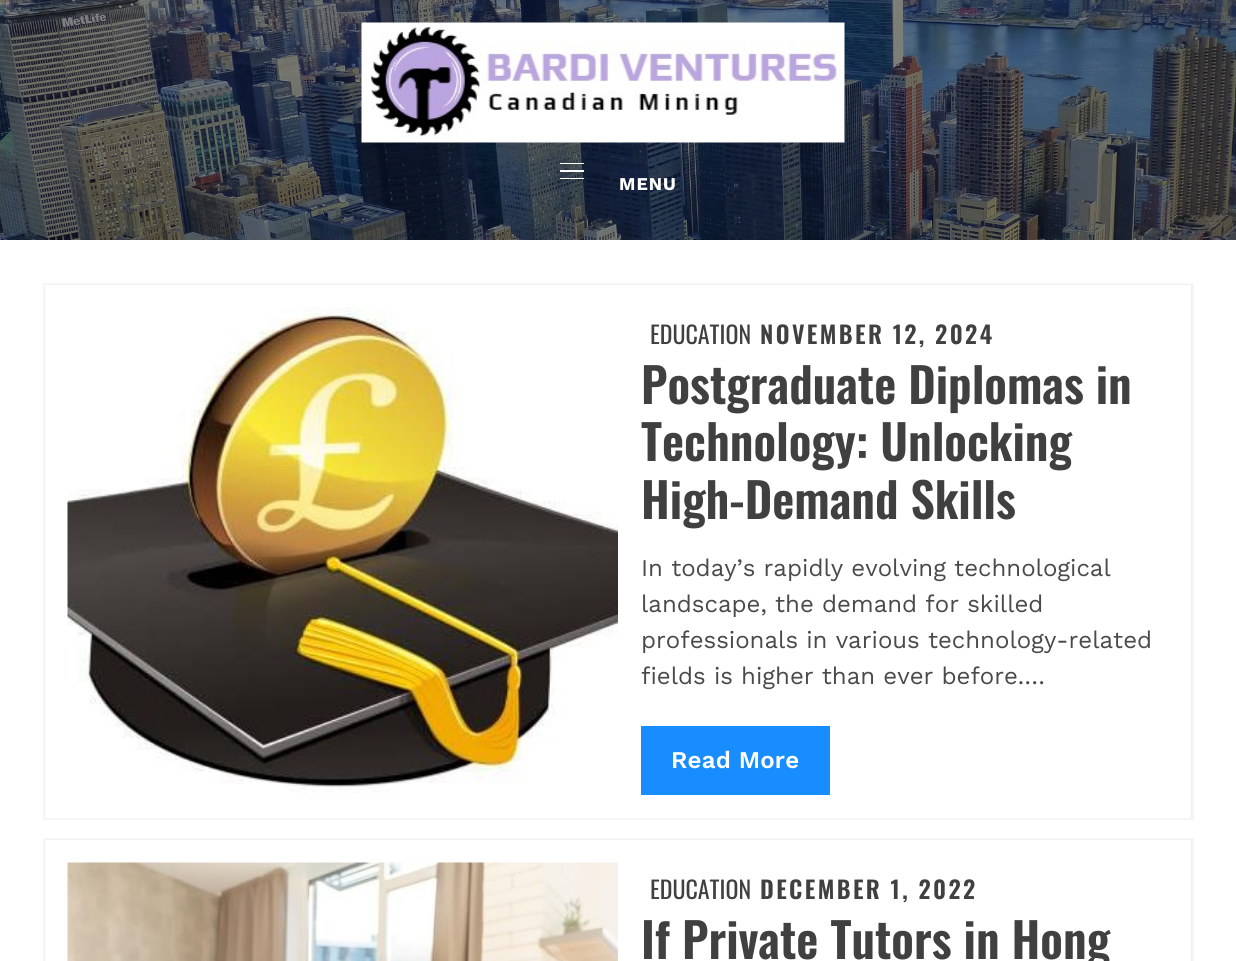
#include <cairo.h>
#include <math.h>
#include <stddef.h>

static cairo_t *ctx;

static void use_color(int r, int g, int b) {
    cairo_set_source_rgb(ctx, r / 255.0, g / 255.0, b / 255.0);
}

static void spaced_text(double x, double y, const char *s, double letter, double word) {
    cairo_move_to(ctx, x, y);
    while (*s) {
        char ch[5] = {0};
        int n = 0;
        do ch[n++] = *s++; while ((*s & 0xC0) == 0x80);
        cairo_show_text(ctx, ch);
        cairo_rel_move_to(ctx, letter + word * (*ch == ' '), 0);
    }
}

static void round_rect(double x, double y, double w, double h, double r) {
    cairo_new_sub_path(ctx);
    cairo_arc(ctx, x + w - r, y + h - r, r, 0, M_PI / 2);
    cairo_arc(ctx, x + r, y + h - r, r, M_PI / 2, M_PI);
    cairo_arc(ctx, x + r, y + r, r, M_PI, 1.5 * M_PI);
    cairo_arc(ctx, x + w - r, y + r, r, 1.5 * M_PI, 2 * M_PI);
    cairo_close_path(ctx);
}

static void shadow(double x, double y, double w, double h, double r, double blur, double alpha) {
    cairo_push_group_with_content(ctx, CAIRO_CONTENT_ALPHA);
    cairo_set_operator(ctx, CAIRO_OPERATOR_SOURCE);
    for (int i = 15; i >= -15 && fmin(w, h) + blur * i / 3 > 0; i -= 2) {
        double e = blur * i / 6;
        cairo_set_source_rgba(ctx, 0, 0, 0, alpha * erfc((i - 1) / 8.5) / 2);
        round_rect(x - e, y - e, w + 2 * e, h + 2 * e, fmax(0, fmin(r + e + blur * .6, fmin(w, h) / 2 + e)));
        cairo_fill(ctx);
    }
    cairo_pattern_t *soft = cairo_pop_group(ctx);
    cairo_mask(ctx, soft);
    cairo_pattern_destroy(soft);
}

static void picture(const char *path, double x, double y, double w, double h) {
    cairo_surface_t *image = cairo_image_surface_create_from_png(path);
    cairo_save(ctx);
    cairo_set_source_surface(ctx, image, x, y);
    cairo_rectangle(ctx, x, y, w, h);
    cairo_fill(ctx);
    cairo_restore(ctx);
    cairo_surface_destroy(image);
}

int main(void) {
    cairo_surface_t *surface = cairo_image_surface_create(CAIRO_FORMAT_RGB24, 1236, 961);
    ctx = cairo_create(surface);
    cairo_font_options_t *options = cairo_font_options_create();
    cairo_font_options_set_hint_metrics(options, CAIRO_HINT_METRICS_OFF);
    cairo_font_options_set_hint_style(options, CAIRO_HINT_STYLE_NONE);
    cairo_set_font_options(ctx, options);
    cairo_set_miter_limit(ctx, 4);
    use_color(255, 255, 255);
    cairo_paint(ctx);
    picture("img1.png", 0, 0, 1236, 240);
    picture("img2.png", 361, 22, 484, 121);
    use_color(255, 255, 255);
    cairo_rectangle(ctx, 560, 163, 24, 1);
    cairo_fill(ctx);
    cairo_rectangle(ctx, 560, 170, 24, 2);
    cairo_fill(ctx);
    cairo_rectangle(ctx, 560, 178, 24, 1);
    cairo_fill(ctx);
    cairo_select_font_face(ctx, "Work Sans", CAIRO_FONT_SLANT_NORMAL, CAIRO_FONT_WEIGHT_BOLD);
    cairo_set_font_size(ctx, 18);
    spaced_text(619, 190, "MENU", 1, 0);
    use_color(0, 0, 0);
    shadow(44, 284, 1149, 535, 0, 1.5, 0.08);
    use_color(255, 255, 255);
    cairo_rectangle(ctx, 45, 285, 1146, 533);
    cairo_fill(ctx);
    picture("img3.png", 67, 307, 551, 486);
    cairo_select_font_face(ctx, "Oswald", CAIRO_FONT_SLANT_NORMAL, CAIRO_FONT_WEIGHT_NORMAL);
    cairo_set_font_size(ctx, 24);
    use_color(64, 64, 64);
    cairo_move_to(ctx, 650, 344);
    cairo_show_text(ctx, "EDUCATION");
    cairo_select_font_face(ctx, "Oswald SemiBold", CAIRO_FONT_SLANT_NORMAL, CAIRO_FONT_WEIGHT_NORMAL);
    spaced_text(760, 344, "NOVEMBER 12, 2024", 2.4, 0);
    cairo_set_font_size(ctx, 48);
    cairo_move_to(ctx, 641, 404);
    cairo_show_text(ctx, "Postgraduate Diplomas in");
    cairo_move_to(ctx, 641, 461);
    cairo_show_text(ctx, "Technology: Unlocking");
    cairo_move_to(ctx, 641, 519);
    cairo_show_text(ctx, "High-Demand Skills");
    cairo_select_font_face(ctx, "Work Sans", CAIRO_FONT_SLANT_NORMAL, CAIRO_FONT_WEIGHT_NORMAL);
    cairo_set_font_size(ctx, 24);
    use_color(74, 74, 74);
    cairo_move_to(ctx, 641, 576);
    cairo_show_text(ctx, "In today’s rapidly evolving technological");
    cairo_move_to(ctx, 641, 612);
    cairo_show_text(ctx, "landscape, the demand for skilled");
    cairo_move_to(ctx, 641, 648);
    cairo_show_text(ctx, "professionals in various technology-related");
    cairo_move_to(ctx, 641, 684);
    cairo_show_text(ctx, "fields is higher than ever before.…");
    use_color(23, 141, 255);
    cairo_rectangle(ctx, 641, 726, 189, 69);
    cairo_fill(ctx);
    cairo_select_font_face(ctx, "Work Sans SemiBold", CAIRO_FONT_SLANT_NORMAL, CAIRO_FONT_WEIGHT_NORMAL);
    use_color(255, 255, 255);
    spaced_text(671, 768, "Read More", 0.25, 0);
    cairo_save(ctx);
    cairo_set_fill_rule(ctx, CAIRO_FILL_RULE_EVEN_ODD);
    cairo_new_path(ctx);
    cairo_move_to(ctx, 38, 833);
    cairo_line_to(ctx, 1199, 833);
    cairo_line_to(ctx, 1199, 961);
    cairo_line_to(ctx, 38, 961);
    cairo_close_path(ctx);
    cairo_move_to(ctx, 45, 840);
    cairo_line_to(ctx, 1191, 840);
    cairo_line_to(ctx, 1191, 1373);
    cairo_line_to(ctx, 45, 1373);
    cairo_close_path(ctx);
    cairo_clip(ctx);
    use_color(0, 0, 0);
    shadow(44, 839, 1149, 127, 0, 1.5, 0.08);
    cairo_restore(ctx);
    picture("img4.png", 67, 862, 551, 99);
    cairo_select_font_face(ctx, "Oswald", CAIRO_FONT_SLANT_NORMAL, CAIRO_FONT_WEIGHT_NORMAL);
    use_color(64, 64, 64);
    cairo_move_to(ctx, 650, 899);
    cairo_show_text(ctx, "EDUCATION");
    cairo_select_font_face(ctx, "Oswald SemiBold", CAIRO_FONT_SLANT_NORMAL, CAIRO_FONT_WEIGHT_NORMAL);
    spaced_text(760, 899, "DECEMBER 1, 2022", 2.4, 0);
    cairo_set_font_size(ctx, 48);
    cairo_move_to(ctx, 641, 959);
    cairo_show_text(ctx, "If Private Tutors in Hong");
    cairo_surface_write_to_png(surface, "result.png");
    cairo_font_options_destroy(options);
    cairo_destroy(ctx);
    cairo_surface_destroy(surface);
    return 0;
}
